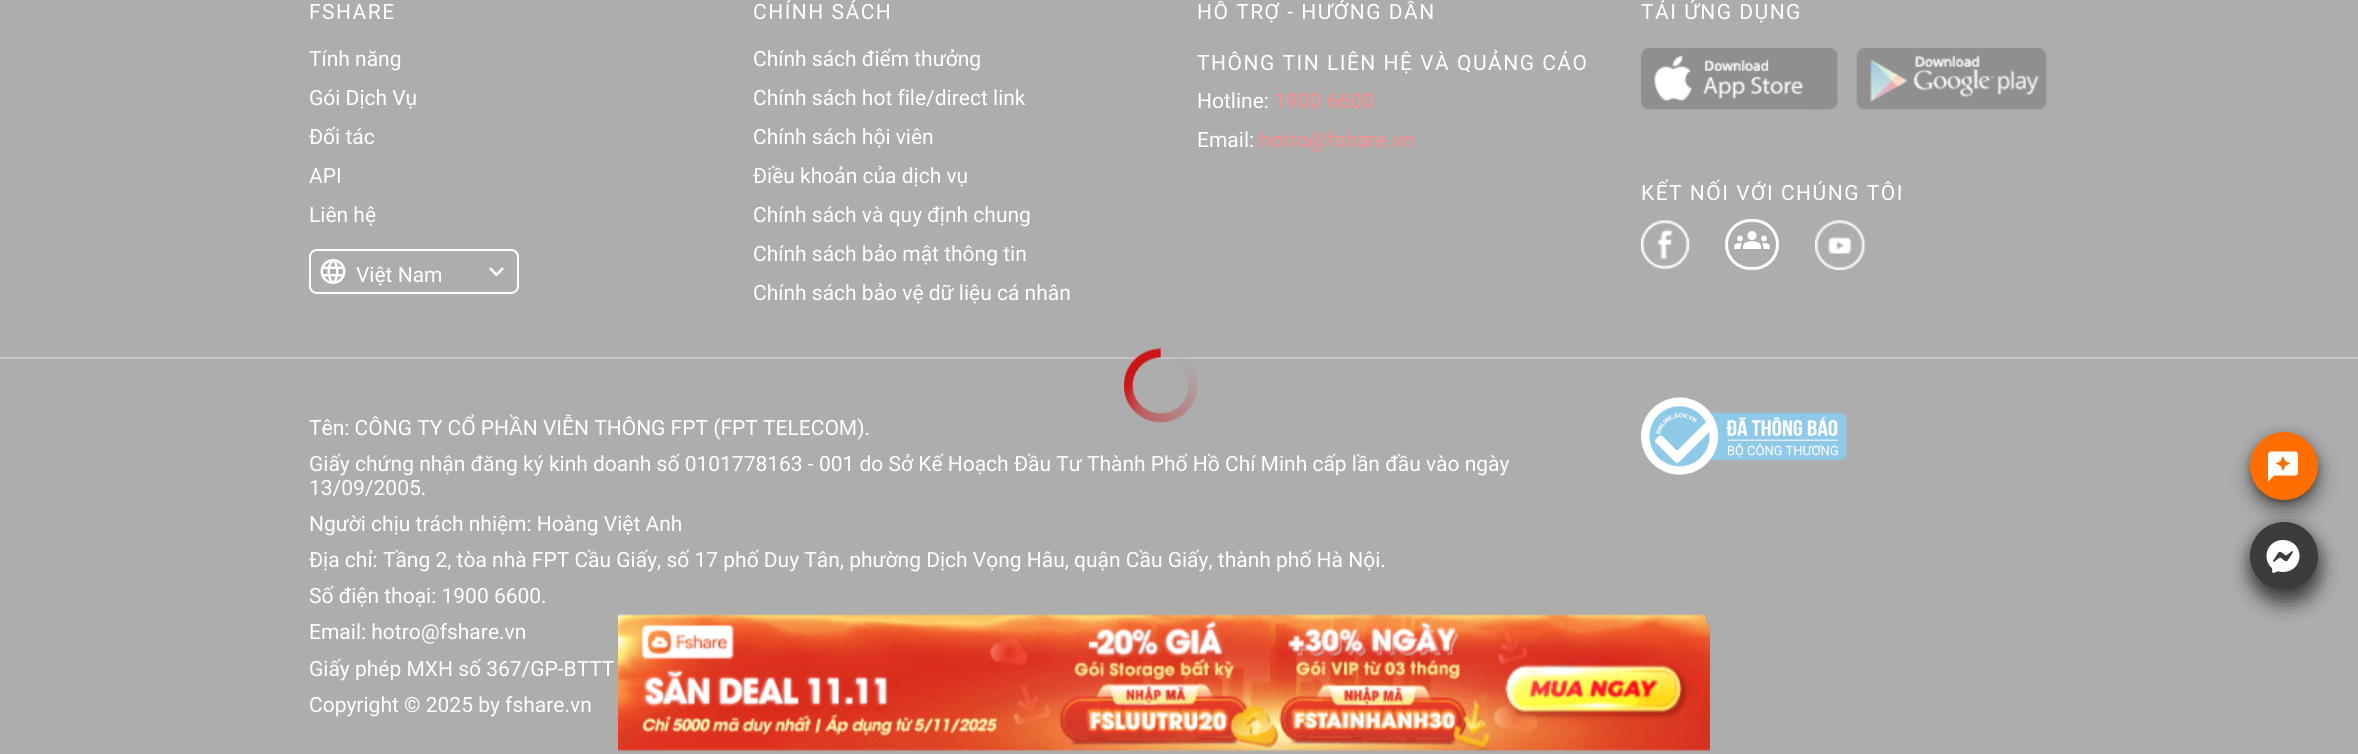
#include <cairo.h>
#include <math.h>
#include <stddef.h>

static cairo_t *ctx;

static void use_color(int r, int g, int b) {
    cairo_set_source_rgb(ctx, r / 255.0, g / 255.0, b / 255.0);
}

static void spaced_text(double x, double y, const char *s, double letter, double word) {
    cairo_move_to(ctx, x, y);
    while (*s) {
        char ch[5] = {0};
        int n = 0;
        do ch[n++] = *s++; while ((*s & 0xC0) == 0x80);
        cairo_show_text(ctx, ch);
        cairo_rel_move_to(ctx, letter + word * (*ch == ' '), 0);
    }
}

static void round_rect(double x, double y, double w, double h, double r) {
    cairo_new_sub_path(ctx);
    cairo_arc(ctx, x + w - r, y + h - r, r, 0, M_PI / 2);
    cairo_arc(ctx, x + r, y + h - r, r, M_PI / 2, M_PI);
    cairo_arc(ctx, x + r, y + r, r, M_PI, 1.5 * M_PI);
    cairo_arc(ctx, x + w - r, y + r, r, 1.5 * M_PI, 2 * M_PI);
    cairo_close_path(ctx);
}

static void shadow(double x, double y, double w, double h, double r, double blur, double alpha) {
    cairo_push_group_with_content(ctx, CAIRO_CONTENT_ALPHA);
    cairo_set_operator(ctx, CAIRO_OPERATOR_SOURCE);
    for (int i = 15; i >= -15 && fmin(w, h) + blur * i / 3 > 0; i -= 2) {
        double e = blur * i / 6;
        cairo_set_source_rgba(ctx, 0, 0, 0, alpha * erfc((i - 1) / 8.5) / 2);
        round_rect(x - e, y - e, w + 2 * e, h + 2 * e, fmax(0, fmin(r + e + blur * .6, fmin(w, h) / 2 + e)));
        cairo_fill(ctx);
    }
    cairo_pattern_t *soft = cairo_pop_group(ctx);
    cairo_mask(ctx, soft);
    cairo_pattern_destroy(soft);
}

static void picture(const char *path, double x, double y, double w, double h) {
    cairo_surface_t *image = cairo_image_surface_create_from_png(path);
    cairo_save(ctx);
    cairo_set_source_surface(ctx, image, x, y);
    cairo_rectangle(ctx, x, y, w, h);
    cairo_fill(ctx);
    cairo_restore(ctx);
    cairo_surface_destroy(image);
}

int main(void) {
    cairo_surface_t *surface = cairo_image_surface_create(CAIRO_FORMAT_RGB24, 2358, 754);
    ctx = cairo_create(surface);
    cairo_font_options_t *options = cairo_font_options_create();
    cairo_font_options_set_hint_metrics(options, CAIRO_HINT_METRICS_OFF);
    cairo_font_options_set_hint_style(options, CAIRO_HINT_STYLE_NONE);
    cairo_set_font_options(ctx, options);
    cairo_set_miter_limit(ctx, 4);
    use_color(173, 173, 173);
    cairo_paint(ctx);
    cairo_select_font_face(ctx, "Roboto", CAIRO_FONT_SLANT_NORMAL, CAIRO_FONT_WEIGHT_NORMAL);
    cairo_set_font_size(ctx, 21);
    use_color(255, 255, 255);
    spaced_text(309, 19, "FSHARE", 1.5, 0);
    cairo_move_to(ctx, 309, 66);
    cairo_show_text(ctx, "Tính năng");
    cairo_move_to(ctx, 309, 105);
    cairo_show_text(ctx, "Gói Dịch Vụ");
    cairo_move_to(ctx, 309, 144);
    cairo_show_text(ctx, "Đối tác");
    cairo_move_to(ctx, 309, 183);
    cairo_show_text(ctx, "API");
    cairo_move_to(ctx, 309, 222);
    cairo_show_text(ctx, "Liên hệ");
    round_rect(310, 250, 208, 43, 7);
    cairo_stroke(ctx);
    picture("img1.png", 320, 259, 26, 25);
    cairo_move_to(ctx, 356, 282);
    cairo_show_text(ctx, "Việt Nam");
    picture("img2.png", 489, 267, 15, 10);
    spaced_text(753, 19, "CHÍNH SÁCH", 1.5, 0);
    cairo_move_to(ctx, 753, 66);
    cairo_show_text(ctx, "Chính sách điểm thưởng");
    cairo_move_to(ctx, 753, 105);
    cairo_show_text(ctx, "Chính sách hot file/direct link");
    cairo_move_to(ctx, 753, 144);
    cairo_show_text(ctx, "Chính sách hội viên");
    cairo_move_to(ctx, 753, 183);
    cairo_show_text(ctx, "Điều khoản của dịch vụ");
    cairo_move_to(ctx, 753, 222);
    cairo_show_text(ctx, "Chính sách và quy định chung");
    cairo_move_to(ctx, 753, 261);
    cairo_show_text(ctx, "Chính sách bảo mật thông tin");
    cairo_move_to(ctx, 753, 300);
    cairo_show_text(ctx, "Chính sách bảo vệ dữ liệu cá nhân");
    spaced_text(1197, 19, "HỖ TRỢ - HƯỚNG DẪN", 1.5, 0);
    spaced_text(1197, 70, "THÔNG TIN LIÊN HỆ VÀ QUẢNG CÁO", 1.5, 0);
    cairo_move_to(ctx, 1197, 108);
    cairo_show_text(ctx, "Hotline:");
    use_color(255, 143, 143);
    cairo_move_to(ctx, 1274, 108);
    cairo_show_text(ctx, "1900 6600");
    use_color(255, 255, 255);
    cairo_move_to(ctx, 1197, 147);
    cairo_show_text(ctx, "Email:");
    use_color(255, 143, 143);
    cairo_move_to(ctx, 1259, 147);
    cairo_show_text(ctx, "hotro@fshare.vn");
    use_color(255, 255, 255);
    spaced_text(1641, 19, "TẢI ỨNG DỤNG", 1.5, 0);
    picture("img3.png", 1641, 48, 197, 62);
    picture("img4.png", 1856, 48, 191, 62);
    spaced_text(1641, 200, "KẾT NỐI VỚI CHÚNG TÔI", 1.5, 0);
    picture("img5.png", 1641, 220, 49, 49);
    round_rect(1726.5, 220.5, 51, 48, 24);
    cairo_set_line_width(ctx, 3);
    cairo_stroke(ctx);
    picture("img6.png", 1734, 231, 36, 18);
    picture("img7.png", 1815, 220, 50, 50);
    use_color(197, 197, 197);
    cairo_rectangle(ctx, 0, 357, 2358, 2);
    cairo_fill(ctx);
    use_color(255, 255, 255);
    cairo_move_to(ctx, 309, 435);
    cairo_show_text(ctx, "Tên: CÔNG TY CỔ PHẦN VIỄN THÔNG FPT (FPT TELECOM).");
    cairo_move_to(ctx, 309, 471);
    cairo_show_text(ctx, "Giấy chứng nhận đăng ký kinh doanh số 0101778163 - 001 do Sở Kế Hoạch Đầu Tư Thành Phố Hồ Chí Minh cấp lần đầu vào ngày");
    cairo_move_to(ctx, 309, 495);
    cairo_show_text(ctx, "13/09/2005.");
    cairo_move_to(ctx, 309, 531);
    cairo_show_text(ctx, "Người chịu trách nhiệm: Hoàng Việt Anh");
    cairo_move_to(ctx, 309, 567);
    cairo_show_text(ctx, "Địa chỉ: Tầng 2, tòa nhà FPT Cầu Giấy, số 17 phố Duy Tân, phường Dịch Vọng Hâu, quận Cầu Giấy, thành phố Hà Nội.");
    cairo_move_to(ctx, 309, 603);
    cairo_show_text(ctx, "Số điện thoại: 1900 6600.");
    cairo_move_to(ctx, 309, 639);
    cairo_show_text(ctx, "Email: hotro@fshare.vn");
    cairo_move_to(ctx, 309, 676);
    cairo_show_text(ctx, "Giấy phép MXH số 367/GP-BTTT");
    cairo_move_to(ctx, 309, 712);
    cairo_show_text(ctx, "Copyright © 2025 by fshare.vn");
    picture("img8.png", 1641, 397, 206, 78);
    picture("img9.png", 1124, 348, 74, 75);
    use_color(0, 0, 0);
    shadow(2250, 434, 68, 67, 33.5, 6, 0.12);
    shadow(2250, 437, 68, 67, 33.5, 3, 0.14);
    shadow(2253, 440, 62, 61, 30.5, 2, 0.2);
    picture("img10.png", 618, 614, 1092, 137);
    picture("img11.png", 1705, 614, 5, 13);
    shadow(2250, 435, 68, 68, 34, 7.5, 0.12);
    shadow(2252, 444, 67, 68, 33.5, 10.5, 0.36);
    use_color(255, 110, 1);
    cairo_arc(ctx, 2284, 466, 34, 0, 2 * M_PI);
    cairo_fill(ctx);
    picture("img12.png", 2268, 451, 30, 31);
    use_color(0, 0, 0);
    shadow(2250, 525, 68, 68, 34, 7.5, 0.12);
    shadow(2252, 534, 67, 68, 33.5, 10.5, 0.36);
    shadow(2250, 525, 68, 68, 34, 7.5, 0.12);
    shadow(2252, 534, 67, 68, 33.5, 10.5, 0.36);
    use_color(60, 60, 60);
    cairo_arc(ctx, 2284, 556, 34, 0, 2 * M_PI);
    cairo_fill(ctx);
    picture("img13.png", 2266, 540, 34, 33);
    cairo_surface_write_to_png(surface, "result.png");
    cairo_font_options_destroy(options);
    cairo_destroy(ctx);
    cairo_surface_destroy(surface);
    return 0;
}
